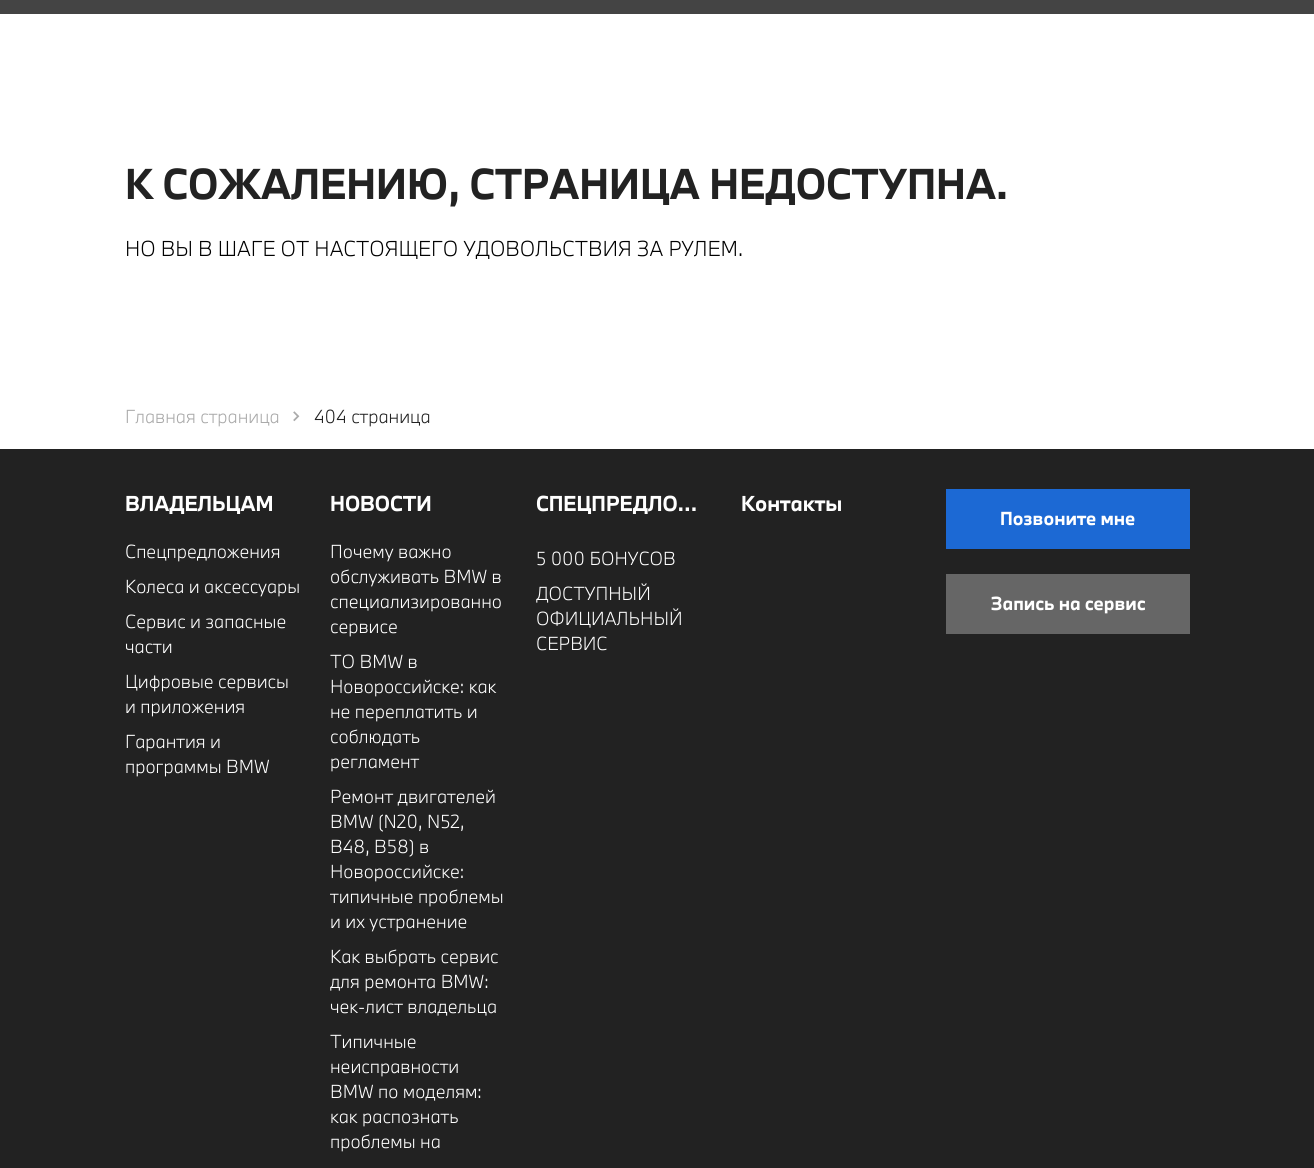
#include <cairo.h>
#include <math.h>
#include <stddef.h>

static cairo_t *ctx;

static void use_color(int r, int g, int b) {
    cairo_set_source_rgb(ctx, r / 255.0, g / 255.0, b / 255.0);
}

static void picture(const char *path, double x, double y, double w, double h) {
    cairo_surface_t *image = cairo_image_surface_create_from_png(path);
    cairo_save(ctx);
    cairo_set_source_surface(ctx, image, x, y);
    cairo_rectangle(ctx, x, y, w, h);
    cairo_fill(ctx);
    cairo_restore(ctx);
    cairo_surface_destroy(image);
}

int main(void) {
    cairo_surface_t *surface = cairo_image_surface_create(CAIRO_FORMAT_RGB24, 1314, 1168);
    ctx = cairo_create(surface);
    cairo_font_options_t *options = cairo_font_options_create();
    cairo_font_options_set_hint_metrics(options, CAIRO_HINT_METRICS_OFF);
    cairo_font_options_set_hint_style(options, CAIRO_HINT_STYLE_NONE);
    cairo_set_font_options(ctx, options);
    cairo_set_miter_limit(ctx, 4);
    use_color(255, 255, 255);
    cairo_paint(ctx);
    use_color(68, 68, 68);
    cairo_rectangle(ctx, 0, 0, 1314, 14);
    cairo_fill(ctx);
    cairo_select_font_face(ctx, "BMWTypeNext", CAIRO_FONT_SLANT_NORMAL, CAIRO_FONT_WEIGHT_BOLD);
    cairo_set_font_size(ctx, 40);
    use_color(34, 34, 34);
    cairo_move_to(ctx, 125, 199);
    cairo_show_text(ctx, "К СОЖАЛЕНИЮ, СТРАНИЦА НЕДОСТУПНА.");
    cairo_select_font_face(ctx, "BMWTypeNext Light", CAIRO_FONT_SLANT_NORMAL, CAIRO_FONT_WEIGHT_NORMAL);
    cairo_set_font_size(ctx, 20);
    use_color(0, 0, 0);
    cairo_move_to(ctx, 125, 256);
    cairo_show_text(ctx, "НО ВЫ В ШАГЕ ОТ НАСТОЯЩЕГО УДОВОЛЬСТВИЯ ЗА РУЛЕМ.");
    cairo_set_font_size(ctx, 17.5);
    use_color(170, 170, 170);
    cairo_move_to(ctx, 125, 423);
    cairo_show_text(ctx, "Главная страница");
    picture("img1.png", 293, 411, 7, 11);
    use_color(34, 34, 34);
    cairo_move_to(ctx, 314, 423);
    cairo_show_text(ctx, "404 страница");
    cairo_rectangle(ctx, 0, 449, 1314, 719);
    cairo_fill(ctx);
    cairo_select_font_face(ctx, "BMWTypeNext", CAIRO_FONT_SLANT_NORMAL, CAIRO_FONT_WEIGHT_BOLD);
    cairo_set_font_size(ctx, 20);
    use_color(255, 255, 255);
    cairo_move_to(ctx, 125, 511);
    cairo_show_text(ctx, "ВЛАДЕЛЬЦАМ");
    cairo_select_font_face(ctx, "BMWTypeNext Light", CAIRO_FONT_SLANT_NORMAL, CAIRO_FONT_WEIGHT_NORMAL);
    cairo_set_font_size(ctx, 17.5);
    cairo_move_to(ctx, 125, 558);
    cairo_show_text(ctx, "Спецпредложения");
    cairo_move_to(ctx, 125, 593);
    cairo_show_text(ctx, "Колеса и аксессуары");
    cairo_move_to(ctx, 125, 628);
    cairo_show_text(ctx, "Сервис и запасные");
    cairo_move_to(ctx, 125, 653);
    cairo_show_text(ctx, "части");
    cairo_move_to(ctx, 125, 688);
    cairo_show_text(ctx, "Цифровые сервисы");
    cairo_move_to(ctx, 125, 713);
    cairo_show_text(ctx, "и приложения");
    cairo_move_to(ctx, 125, 748);
    cairo_show_text(ctx, "Гарантия и");
    cairo_move_to(ctx, 125, 773);
    cairo_show_text(ctx, "программы BMW");
    cairo_select_font_face(ctx, "BMWTypeNext", CAIRO_FONT_SLANT_NORMAL, CAIRO_FONT_WEIGHT_BOLD);
    cairo_set_font_size(ctx, 20);
    cairo_move_to(ctx, 330, 511);
    cairo_show_text(ctx, "НОВОСТИ");
    cairo_select_font_face(ctx, "BMWTypeNext Light", CAIRO_FONT_SLANT_NORMAL, CAIRO_FONT_WEIGHT_NORMAL);
    cairo_set_font_size(ctx, 17.5);
    cairo_move_to(ctx, 330, 558);
    cairo_show_text(ctx, "Почему важно");
    cairo_move_to(ctx, 330, 583);
    cairo_show_text(ctx, "обслуживать BMW в");
    cairo_move_to(ctx, 330, 608);
    cairo_show_text(ctx, "специализированно");
    cairo_move_to(ctx, 330, 633);
    cairo_show_text(ctx, "сервисе");
    cairo_move_to(ctx, 330, 668);
    cairo_show_text(ctx, "ТО BMW в");
    cairo_move_to(ctx, 330, 693);
    cairo_show_text(ctx, "Новороссийске: как");
    cairo_move_to(ctx, 330, 718);
    cairo_show_text(ctx, "не переплатить и");
    cairo_move_to(ctx, 330, 743);
    cairo_show_text(ctx, "соблюдать");
    cairo_move_to(ctx, 330, 768);
    cairo_show_text(ctx, "регламент");
    cairo_move_to(ctx, 330, 803);
    cairo_show_text(ctx, "Ремонт двигателей");
    cairo_move_to(ctx, 330, 828);
    cairo_show_text(ctx, "BMW (N20, N52,");
    cairo_move_to(ctx, 330, 853);
    cairo_show_text(ctx, "B48, B58) в");
    cairo_move_to(ctx, 330, 878);
    cairo_show_text(ctx, "Новороссийске:");
    cairo_move_to(ctx, 330, 903);
    cairo_show_text(ctx, "типичные проблемы");
    cairo_move_to(ctx, 330, 928);
    cairo_show_text(ctx, "и их устранение");
    cairo_move_to(ctx, 330, 963);
    cairo_show_text(ctx, "Как выбрать сервис");
    cairo_move_to(ctx, 330, 988);
    cairo_show_text(ctx, "для ремонта BMW:");
    cairo_move_to(ctx, 330, 1013);
    cairo_show_text(ctx, "чек-лист владельца");
    cairo_move_to(ctx, 330, 1048);
    cairo_show_text(ctx, "Типичные");
    cairo_move_to(ctx, 330, 1073);
    cairo_show_text(ctx, "неисправности");
    cairo_move_to(ctx, 330, 1098);
    cairo_show_text(ctx, "BMW по моделям:");
    cairo_move_to(ctx, 330, 1123);
    cairo_show_text(ctx, "как распознать");
    cairo_move_to(ctx, 330, 1148);
    cairo_show_text(ctx, "проблемы на");
    cairo_select_font_face(ctx, "BMWTypeNext", CAIRO_FONT_SLANT_NORMAL, CAIRO_FONT_WEIGHT_BOLD);
    cairo_set_font_size(ctx, 20);
    cairo_move_to(ctx, 536, 511);
    cairo_show_text(ctx, "СПЕЦПРЕДЛО…");
    cairo_select_font_face(ctx, "BMWTypeNext Light", CAIRO_FONT_SLANT_NORMAL, CAIRO_FONT_WEIGHT_NORMAL);
    cairo_set_font_size(ctx, 17.5);
    cairo_move_to(ctx, 536, 565);
    cairo_show_text(ctx, "5 000 БОНУСОВ");
    cairo_save(ctx);
    cairo_rectangle(ctx, 536, 489, 175, 167);
    cairo_clip(ctx);
    cairo_move_to(ctx, 536, 600);
    cairo_show_text(ctx, "ДОСТУПНЫЙ");
    cairo_restore(ctx);
    cairo_move_to(ctx, 536, 625);
    cairo_show_text(ctx, "ОФИЦИАЛЬНЫЙ");
    cairo_move_to(ctx, 536, 650);
    cairo_show_text(ctx, "СЕРВИС");
    cairo_select_font_face(ctx, "BMWTypeNext", CAIRO_FONT_SLANT_NORMAL, CAIRO_FONT_WEIGHT_BOLD);
    cairo_set_font_size(ctx, 20);
    cairo_move_to(ctx, 741, 511);
    cairo_show_text(ctx, "Контакты");
    use_color(28, 105, 212);
    cairo_rectangle(ctx, 946, 489, 244, 60);
    cairo_fill(ctx);
    cairo_set_font_size(ctx, 17.5);
    use_color(255, 255, 255);
    cairo_move_to(ctx, 1000, 525);
    cairo_show_text(ctx, "Позвоните мне");
    use_color(102, 102, 102);
    cairo_rectangle(ctx, 946, 574, 244, 60);
    cairo_fill(ctx);
    use_color(255, 255, 255);
    cairo_move_to(ctx, 991, 610);
    cairo_show_text(ctx, "Запись на сервис");
    cairo_surface_write_to_png(surface, "result.png");
    cairo_font_options_destroy(options);
    cairo_destroy(ctx);
    cairo_surface_destroy(surface);
    return 0;
}
